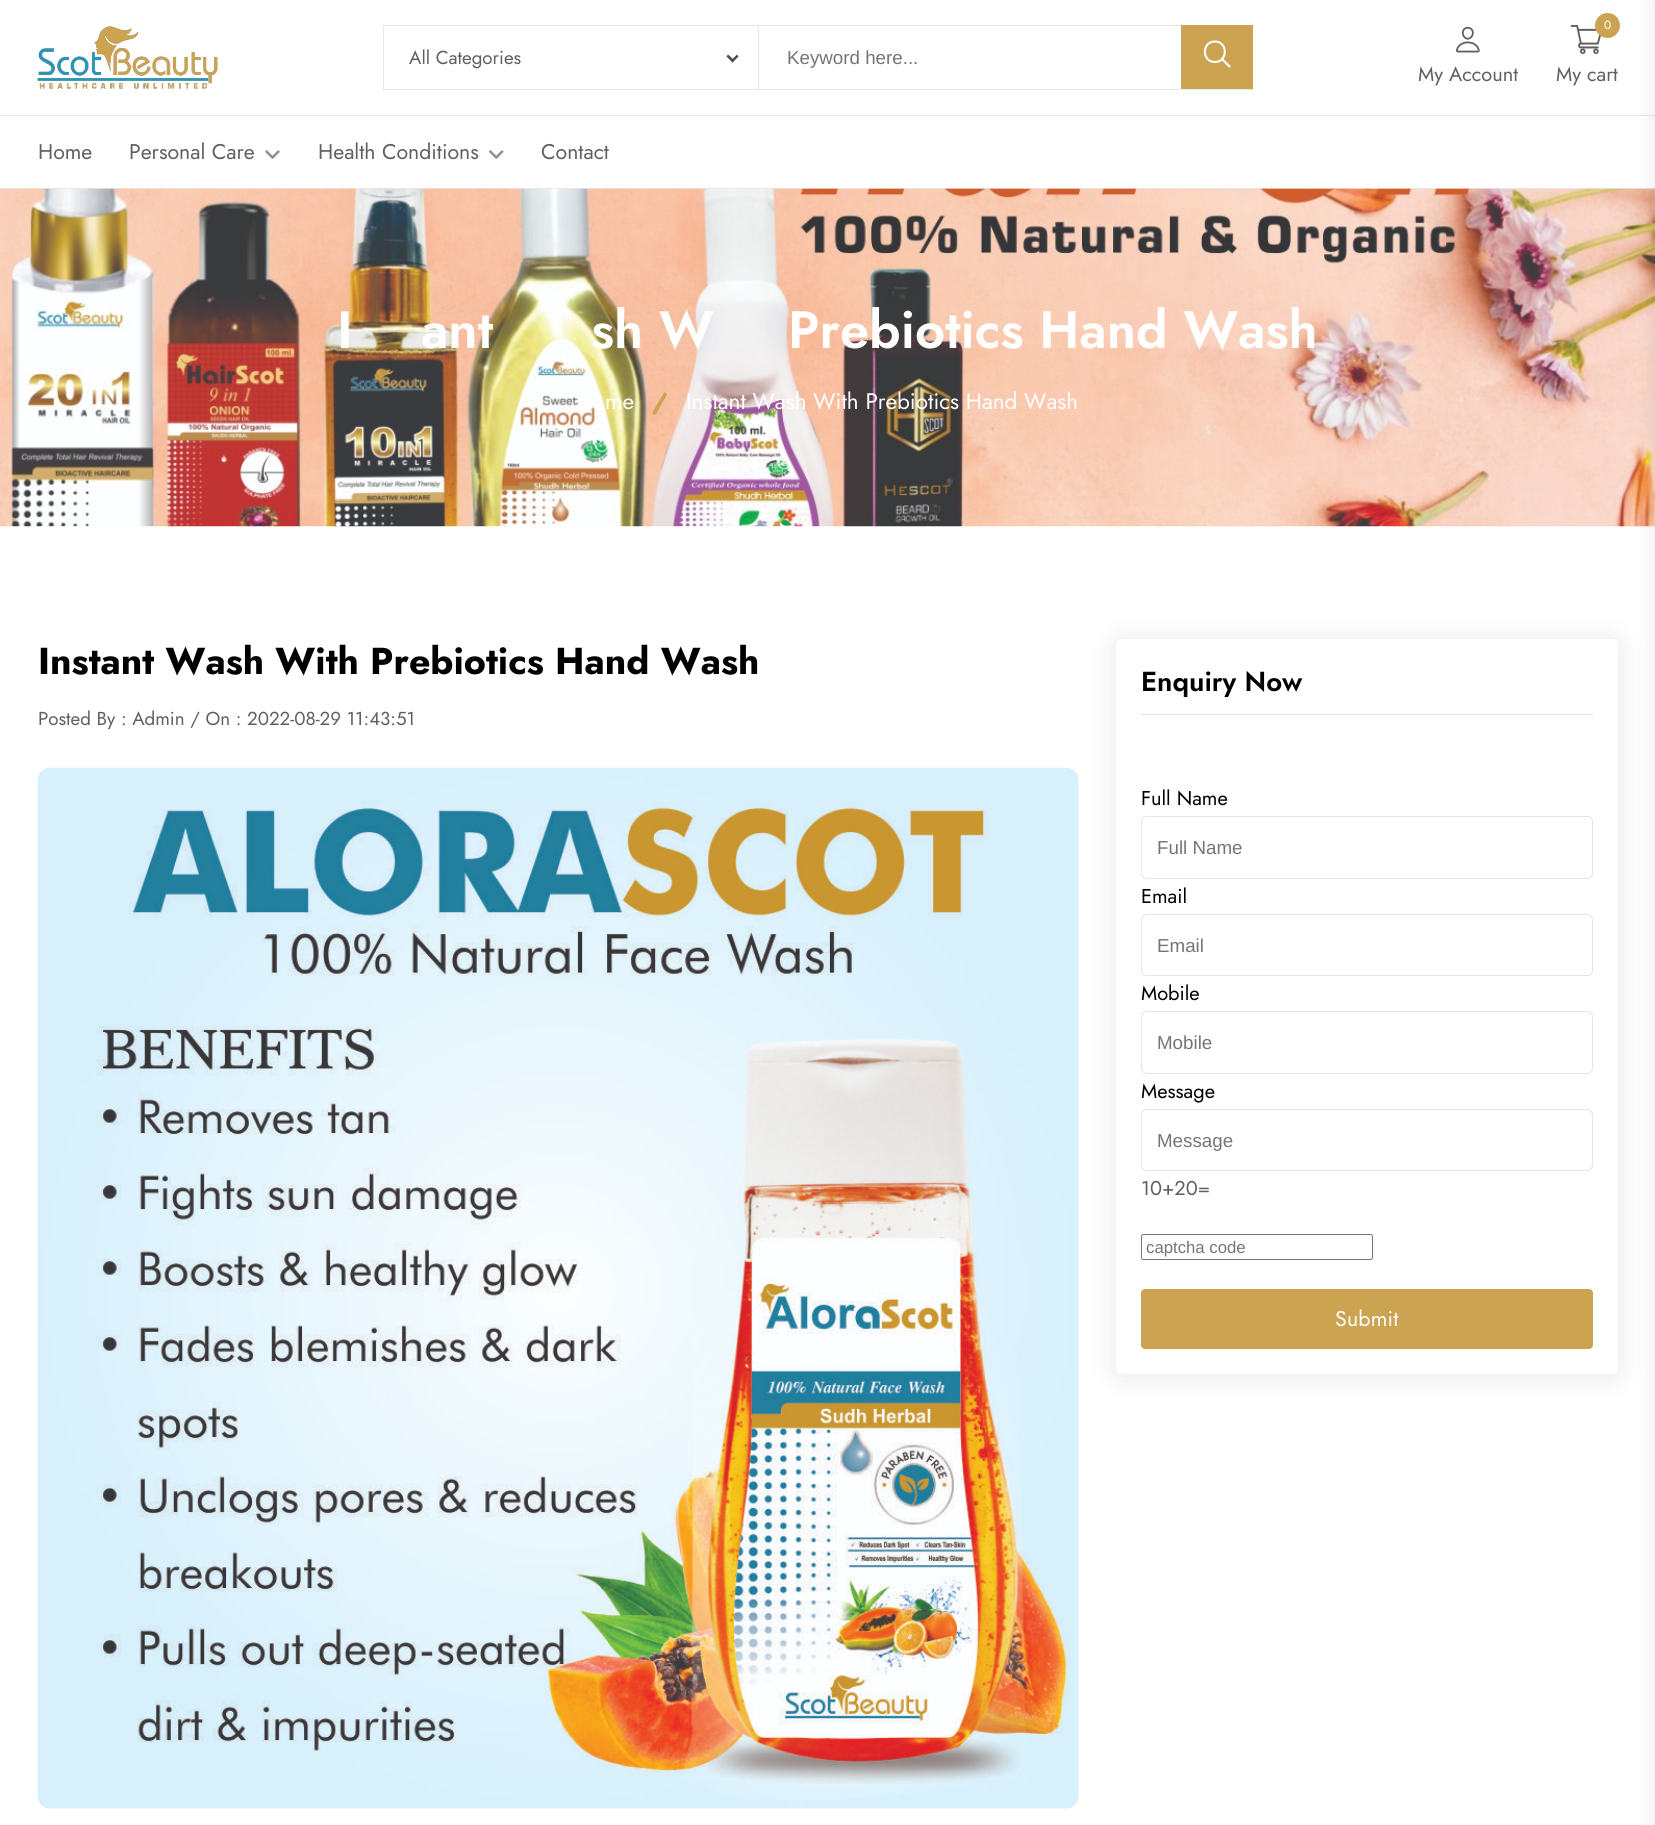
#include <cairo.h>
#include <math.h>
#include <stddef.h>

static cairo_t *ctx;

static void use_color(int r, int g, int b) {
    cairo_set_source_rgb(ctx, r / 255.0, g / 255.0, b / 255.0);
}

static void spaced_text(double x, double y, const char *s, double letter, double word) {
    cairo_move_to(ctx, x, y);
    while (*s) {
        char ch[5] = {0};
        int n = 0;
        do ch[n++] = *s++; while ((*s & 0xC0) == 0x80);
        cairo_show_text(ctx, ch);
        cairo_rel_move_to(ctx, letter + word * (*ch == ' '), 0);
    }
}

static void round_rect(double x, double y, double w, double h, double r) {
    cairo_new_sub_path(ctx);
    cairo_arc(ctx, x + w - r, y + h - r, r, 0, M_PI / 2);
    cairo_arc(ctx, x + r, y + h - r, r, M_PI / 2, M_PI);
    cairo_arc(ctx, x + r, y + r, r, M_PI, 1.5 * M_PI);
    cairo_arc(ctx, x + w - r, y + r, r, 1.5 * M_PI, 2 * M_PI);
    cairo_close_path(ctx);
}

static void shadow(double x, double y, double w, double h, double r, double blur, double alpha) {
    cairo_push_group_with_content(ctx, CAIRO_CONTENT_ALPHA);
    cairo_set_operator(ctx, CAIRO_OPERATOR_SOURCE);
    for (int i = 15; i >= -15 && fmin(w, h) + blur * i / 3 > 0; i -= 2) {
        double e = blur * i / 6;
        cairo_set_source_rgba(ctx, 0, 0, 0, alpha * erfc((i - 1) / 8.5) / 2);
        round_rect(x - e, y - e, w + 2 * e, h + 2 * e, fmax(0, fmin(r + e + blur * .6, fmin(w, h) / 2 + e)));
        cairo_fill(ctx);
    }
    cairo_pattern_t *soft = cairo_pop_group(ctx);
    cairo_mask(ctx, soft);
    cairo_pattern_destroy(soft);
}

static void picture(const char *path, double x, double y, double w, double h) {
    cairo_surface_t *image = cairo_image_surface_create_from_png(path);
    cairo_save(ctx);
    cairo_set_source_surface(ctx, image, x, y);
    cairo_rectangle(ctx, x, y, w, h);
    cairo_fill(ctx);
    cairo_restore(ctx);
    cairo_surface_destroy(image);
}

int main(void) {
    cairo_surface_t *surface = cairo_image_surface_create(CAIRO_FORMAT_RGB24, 1655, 1825);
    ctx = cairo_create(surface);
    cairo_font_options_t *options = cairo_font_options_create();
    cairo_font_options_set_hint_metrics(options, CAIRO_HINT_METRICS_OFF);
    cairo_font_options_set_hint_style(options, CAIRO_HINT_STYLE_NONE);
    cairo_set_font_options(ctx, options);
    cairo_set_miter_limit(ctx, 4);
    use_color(255, 255, 255);
    cairo_paint(ctx);
    picture("img1.png", 37, 26, 181, 63);
    cairo_rectangle(ctx, 383.5, 25.5, 869, 64);
    use_color(231, 231, 231);
    cairo_set_line_width(ctx, 1);
    cairo_stroke(ctx);
    cairo_select_font_face(ctx, "Jost", CAIRO_FONT_SLANT_NORMAL, CAIRO_FONT_WEIGHT_NORMAL);
    cairo_set_font_size(ctx, 18.75);
    use_color(96, 96, 96);
    cairo_move_to(ctx, 409, 64);
    cairo_show_text(ctx, "All Categories");
    use_color(77, 77, 77);
    cairo_new_path(ctx);
    cairo_move_to(ctx, 737, 54.5);
    cairo_line_to(ctx, 738.5, 56.5);
    cairo_line_to(ctx, 732.5, 62.5);
    cairo_line_to(ctx, 731, 60.5);
    cairo_close_path(ctx);
    cairo_fill(ctx);
    cairo_new_path(ctx);
    cairo_move_to(ctx, 728, 54.5);
    cairo_line_to(ctx, 734.5, 60.5);
    cairo_line_to(ctx, 732.5, 62.5);
    cairo_line_to(ctx, 726.5, 56.5);
    cairo_close_path(ctx);
    cairo_fill(ctx);
    use_color(231, 231, 231);
    cairo_rectangle(ctx, 758, 26, 1, 63);
    cairo_fill(ctx);
    cairo_select_font_face(ctx, "Liberation Sans", CAIRO_FONT_SLANT_NORMAL, CAIRO_FONT_WEIGHT_NORMAL);
    use_color(117, 117, 117);
    cairo_move_to(ctx, 787, 64);
    cairo_show_text(ctx, "Keyword here...");
    use_color(204, 163, 81);
    cairo_rectangle(ctx, 1181, 25, 72, 64);
    cairo_fill(ctx);
    cairo_new_path(ctx);
    cairo_move_to(ctx, 1215, 41.5);
    cairo_curve_to(ctx, 1201.5, 41.5, 1201.5, 62, 1215, 62);
    cairo_curve_to(ctx, 1228, 62, 1228, 41.5, 1215, 41.5);
    cairo_close_path(ctx);
    use_color(255, 255, 255);
    cairo_set_line_width(ctx, 2.1);
    cairo_stroke(ctx);
    cairo_new_path(ctx);
    cairo_move_to(ctx, 1222.5, 59.5);
    cairo_line_to(ctx, 1229.5, 66.5);
    cairo_set_line_cap(ctx, CAIRO_LINE_CAP_ROUND);
    cairo_stroke(ctx);
    picture("img2.png", 1455, 26, 25, 27);
    cairo_select_font_face(ctx, "Jost", CAIRO_FONT_SLANT_NORMAL, CAIRO_FONT_WEIGHT_NORMAL);
    cairo_set_font_size(ctx, 20);
    use_color(96, 96, 96);
    cairo_move_to(ctx, 1418, 81);
    cairo_show_text(ctx, "My Account");
    picture("img3.png", 1570, 25, 31, 29);
    use_color(204, 163, 81);
    cairo_arc(ctx, 1607.5, 25.5, 12.5, 0, 2 * M_PI);
    cairo_fill(ctx);
    cairo_set_font_size(ctx, 12);
    use_color(255, 255, 255);
    cairo_move_to(ctx, 1604, 29);
    cairo_show_text(ctx, "0");
    cairo_set_font_size(ctx, 20);
    use_color(96, 96, 96);
    cairo_move_to(ctx, 1556, 81);
    cairo_show_text(ctx, "My cart");
    use_color(231, 231, 231);
    cairo_rectangle(ctx, 0, 115, 1655, 1);
    cairo_fill(ctx);
    cairo_rectangle(ctx, 0, 188, 1655, 1);
    cairo_fill(ctx);
    picture("img6.png", 0, 188, 1655, 339);
    use_color(5, 0, 0);
    shadow(1655, 0, 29, 1825, 0, 9.5, 0.1);
    cairo_set_font_size(ctx, 21.25);
    use_color(96, 96, 96);
    cairo_move_to(ctx, 38, 159);
    cairo_show_text(ctx, "Home");
    cairo_move_to(ctx, 129, 159);
    cairo_show_text(ctx, "Personal Care");
    picture("img4.png", 265, 150, 15, 9);
    cairo_move_to(ctx, 318, 159);
    cairo_show_text(ctx, "Health Conditions");
    picture("img5.png", 489, 150, 15, 9);
    cairo_move_to(ctx, 541, 159);
    cairo_show_text(ctx, "Contact");
    cairo_select_font_face(ctx, "Jost SemiBold", CAIRO_FONT_SLANT_NORMAL, CAIRO_FONT_WEIGHT_NORMAL);
    cairo_set_font_size(ctx, 52.5);
    use_color(255, 255, 255);
    cairo_move_to(ctx, 337, 348);
    cairo_show_text(ctx, "I");
    cairo_move_to(ctx, 421, 348);
    cairo_show_text(ctx, "ant");
    cairo_move_to(ctx, 591, 348);
    cairo_show_text(ctx, "sh W");
    cairo_move_to(ctx, 788, 348);
    cairo_show_text(ctx, "Prebiotics Hand Wash");
    cairo_select_font_face(ctx, "Jost", CAIRO_FONT_SLANT_NORMAL, CAIRO_FONT_WEIGHT_NORMAL);
    cairo_set_font_size(ctx, 22.5);
    cairo_move_to(ctx, 605, 409);
    cairo_show_text(ctx, "me");
    use_color(204, 163, 81);
    cairo_new_path(ctx);
    cairo_move_to(ctx, 666, 393);
    cairo_curve_to(ctx, 666.5, 393.5, 667, 394.5, 666.5, 395.5);
    cairo_line_to(ctx, 656, 414);
    cairo_curve_to(ctx, 655.5, 415, 654, 415, 653.5, 414.5);
    cairo_curve_to(ctx, 652.5, 414, 652, 413, 652.5, 412);
    cairo_line_to(ctx, 663.5, 393.5);
    cairo_curve_to(ctx, 664, 392.5, 665, 392.5, 666, 393);
    cairo_close_path(ctx);
    cairo_fill(ctx);
    use_color(255, 255, 255);
    cairo_move_to(ctx, 686, 409);
    cairo_show_text(ctx, "Instant Wash With Prebiotics Hand Wash");
    cairo_select_font_face(ctx, "Jost", CAIRO_FONT_SLANT_NORMAL, CAIRO_FONT_WEIGHT_BOLD);
    cairo_set_font_size(ctx, 37.5);
    use_color(0, 0, 0);
    cairo_move_to(ctx, 38, 674);
    cairo_show_text(ctx, "Instant Wash With Prebiotics Hand Wash");
    cairo_select_font_face(ctx, "Jost", CAIRO_FONT_SLANT_NORMAL, CAIRO_FONT_WEIGHT_NORMAL);
    cairo_set_font_size(ctx, 18.75);
    use_color(96, 96, 96);
    cairo_move_to(ctx, 38, 725);
    cairo_show_text(ctx, "Posted By : Admin / On : 2022-08-29 11:43:51");
    picture("img7.png", 37, 767, 1042, 1042);
    cairo_save(ctx);
    cairo_set_fill_rule(ctx, CAIRO_FILL_RULE_EVEN_ODD);
    cairo_new_path(ctx);
    cairo_move_to(ctx, 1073, 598);
    cairo_line_to(ctx, 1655, 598);
    cairo_line_to(ctx, 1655, 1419);
    cairo_line_to(ctx, 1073, 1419);
    cairo_close_path(ctx);
    cairo_move_to(ctx, 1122, 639);
    cairo_line_to(ctx, 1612, 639);
    cairo_curve_to(ctx, 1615.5, 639, 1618, 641.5, 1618, 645);
    cairo_line_to(ctx, 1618, 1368);
    cairo_curve_to(ctx, 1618, 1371.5, 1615.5, 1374, 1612, 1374);
    cairo_line_to(ctx, 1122, 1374);
    cairo_curve_to(ctx, 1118.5, 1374, 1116, 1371.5, 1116, 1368);
    cairo_line_to(ctx, 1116, 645);
    cairo_curve_to(ctx, 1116, 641.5, 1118.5, 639, 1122, 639);
    cairo_close_path(ctx);
    cairo_clip(ctx);
    use_color(0, 0, 0);
    shadow(1116, 641, 502, 735, 6, 14, 0.1);
    cairo_restore(ctx);
    use_color(228, 228, 228);
    cairo_rectangle(ctx, 1141, 714, 452, 1);
    cairo_fill(ctx);
    cairo_select_font_face(ctx, "Jost SemiBold", CAIRO_FONT_SLANT_NORMAL, CAIRO_FONT_WEIGHT_NORMAL);
    cairo_set_font_size(ctx, 27.5);
    use_color(0, 0, 0);
    cairo_move_to(ctx, 1141, 691);
    cairo_show_text(ctx, "Enquiry Now");
    cairo_select_font_face(ctx, "Jost", CAIRO_FONT_SLANT_NORMAL, CAIRO_FONT_WEIGHT_NORMAL);
    cairo_set_font_size(ctx, 20);
    cairo_move_to(ctx, 1141, 805);
    cairo_show_text(ctx, "Full Name");
    round_rect(1141.5, 816.5, 451, 62, 5.5);
    use_color(228, 228, 228);
    cairo_set_line_width(ctx, 1);
    cairo_set_line_cap(ctx, CAIRO_LINE_CAP_BUTT);
    cairo_stroke(ctx);
    cairo_select_font_face(ctx, "Liberation Sans", CAIRO_FONT_SLANT_NORMAL, CAIRO_FONT_WEIGHT_NORMAL);
    cairo_set_font_size(ctx, 18.75);
    use_color(117, 117, 117);
    cairo_move_to(ctx, 1157, 854);
    cairo_show_text(ctx, "Full Name");
    cairo_select_font_face(ctx, "Jost", CAIRO_FONT_SLANT_NORMAL, CAIRO_FONT_WEIGHT_NORMAL);
    cairo_set_font_size(ctx, 20);
    use_color(0, 0, 0);
    cairo_move_to(ctx, 1141, 903);
    cairo_show_text(ctx, "Email");
    round_rect(1141.5, 914.5, 451, 61, 5.5);
    use_color(228, 228, 228);
    cairo_stroke(ctx);
    cairo_select_font_face(ctx, "Liberation Sans", CAIRO_FONT_SLANT_NORMAL, CAIRO_FONT_WEIGHT_NORMAL);
    cairo_set_font_size(ctx, 18.75);
    use_color(117, 117, 117);
    cairo_move_to(ctx, 1157, 952);
    cairo_show_text(ctx, "Email");
    cairo_select_font_face(ctx, "Jost", CAIRO_FONT_SLANT_NORMAL, CAIRO_FONT_WEIGHT_NORMAL);
    cairo_set_font_size(ctx, 20);
    use_color(0, 0, 0);
    cairo_move_to(ctx, 1141, 1000);
    cairo_show_text(ctx, "Mobile");
    round_rect(1141.5, 1011.5, 451, 62, 5.5);
    use_color(228, 228, 228);
    cairo_stroke(ctx);
    cairo_select_font_face(ctx, "Liberation Sans", CAIRO_FONT_SLANT_NORMAL, CAIRO_FONT_WEIGHT_NORMAL);
    cairo_set_font_size(ctx, 18.75);
    use_color(117, 117, 117);
    cairo_move_to(ctx, 1157, 1049);
    cairo_show_text(ctx, "Mobile");
    cairo_select_font_face(ctx, "Jost", CAIRO_FONT_SLANT_NORMAL, CAIRO_FONT_WEIGHT_NORMAL);
    cairo_set_font_size(ctx, 20);
    use_color(0, 0, 0);
    cairo_move_to(ctx, 1141, 1098);
    cairo_show_text(ctx, "Message");
    round_rect(1141.5, 1109.5, 451, 61, 5.5);
    use_color(228, 228, 228);
    cairo_stroke(ctx);
    cairo_select_font_face(ctx, "Liberation Sans", CAIRO_FONT_SLANT_NORMAL, CAIRO_FONT_WEIGHT_NORMAL);
    cairo_set_font_size(ctx, 18.75);
    use_color(117, 117, 117);
    cairo_move_to(ctx, 1157, 1147);
    cairo_show_text(ctx, "Message");
    cairo_select_font_face(ctx, "Jost", CAIRO_FONT_SLANT_NORMAL, CAIRO_FONT_WEIGHT_NORMAL);
    cairo_set_font_size(ctx, 20);
    use_color(96, 96, 96);
    cairo_move_to(ctx, 1141, 1195);
    cairo_show_text(ctx, "10+20=");
    round_rect(1141.5, 1234.5, 231, 25, 2);
    use_color(118, 118, 118);
    cairo_stroke(ctx);
    cairo_select_font_face(ctx, "Liberation Sans", CAIRO_FONT_SLANT_NORMAL, CAIRO_FONT_WEIGHT_NORMAL);
    cairo_set_font_size(ctx, 16.75);
    use_color(117, 117, 117);
    cairo_move_to(ctx, 1146, 1253);
    cairo_show_text(ctx, "captcha code");
    use_color(204, 163, 81);
    round_rect(1141, 1289, 452, 60, 4);
    cairo_fill(ctx);
    cairo_select_font_face(ctx, "Jost", CAIRO_FONT_SLANT_NORMAL, CAIRO_FONT_WEIGHT_NORMAL);
    cairo_set_font_size(ctx, 21.25);
    use_color(255, 255, 255);
    spaced_text(1335, 1326, "Submit", 0.25, 0);
    cairo_surface_write_to_png(surface, "result.png");
    cairo_font_options_destroy(options);
    cairo_destroy(ctx);
    cairo_surface_destroy(surface);
    return 0;
}
